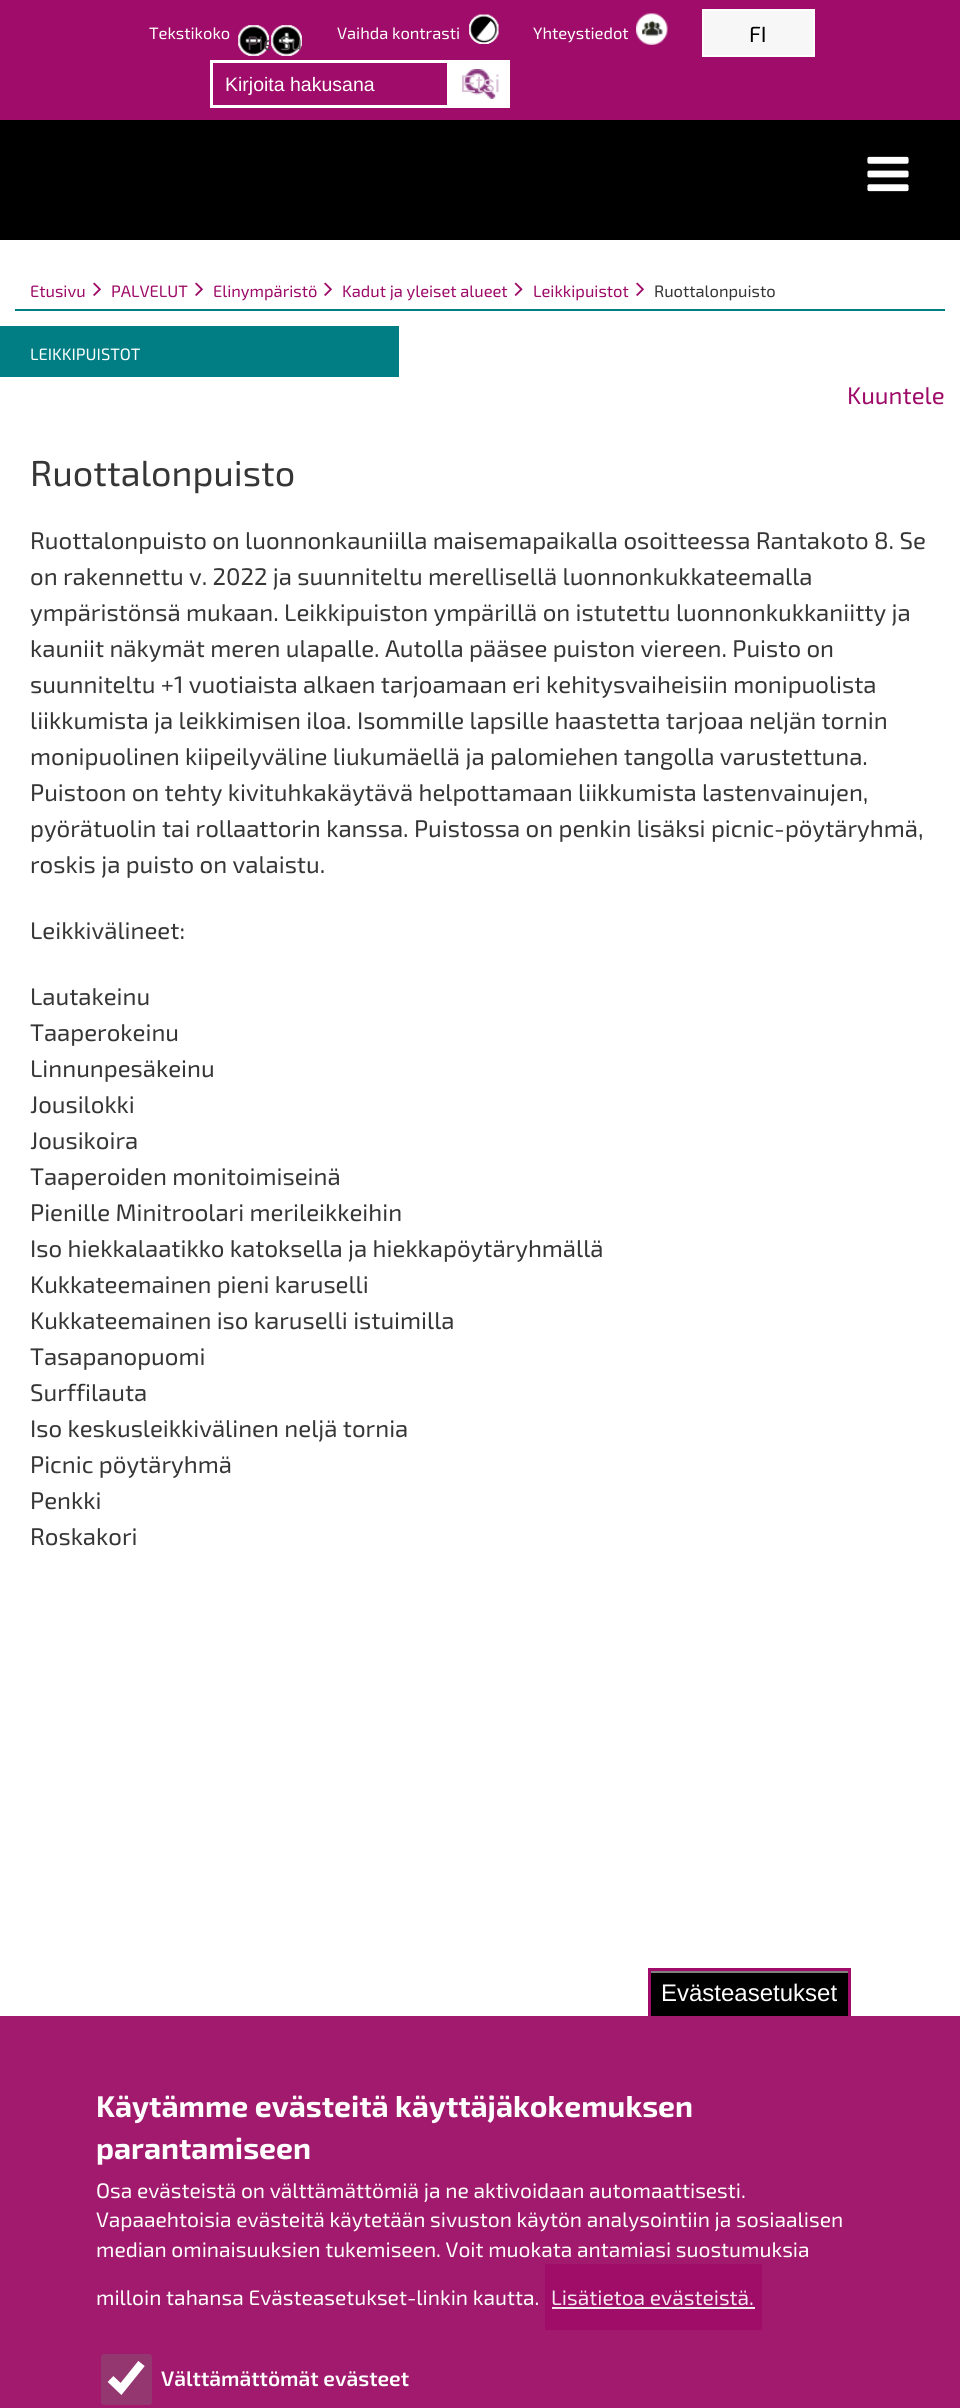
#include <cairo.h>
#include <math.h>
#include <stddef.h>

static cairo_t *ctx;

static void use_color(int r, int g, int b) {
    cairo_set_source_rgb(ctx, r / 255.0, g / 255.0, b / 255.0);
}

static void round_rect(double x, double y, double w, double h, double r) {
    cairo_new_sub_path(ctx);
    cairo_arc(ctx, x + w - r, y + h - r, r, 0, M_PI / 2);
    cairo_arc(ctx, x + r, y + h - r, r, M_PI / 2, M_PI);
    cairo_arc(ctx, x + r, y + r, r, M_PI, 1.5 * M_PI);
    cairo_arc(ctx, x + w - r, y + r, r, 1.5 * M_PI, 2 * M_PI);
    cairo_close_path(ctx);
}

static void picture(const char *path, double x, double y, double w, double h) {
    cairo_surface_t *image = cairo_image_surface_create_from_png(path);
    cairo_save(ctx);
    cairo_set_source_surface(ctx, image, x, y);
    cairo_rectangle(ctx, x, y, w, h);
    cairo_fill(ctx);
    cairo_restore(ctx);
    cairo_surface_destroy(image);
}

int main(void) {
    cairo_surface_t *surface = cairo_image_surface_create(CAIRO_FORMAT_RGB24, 960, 2408);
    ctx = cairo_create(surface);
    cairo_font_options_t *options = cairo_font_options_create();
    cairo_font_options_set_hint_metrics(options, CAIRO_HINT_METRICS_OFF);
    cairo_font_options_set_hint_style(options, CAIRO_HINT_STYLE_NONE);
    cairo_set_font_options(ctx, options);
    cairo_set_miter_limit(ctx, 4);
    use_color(0, 0, 0);
    cairo_paint(ctx);
    use_color(159, 12, 105);
    cairo_rectangle(ctx, 0, 0, 960, 120);
    cairo_fill(ctx);
    cairo_select_font_face(ctx, "Exo 2", CAIRO_FONT_SLANT_NORMAL, CAIRO_FONT_WEIGHT_NORMAL);
    cairo_set_font_size(ctx, 16.5);
    use_color(255, 255, 255);
    cairo_move_to(ctx, 149, 39);
    cairo_show_text(ctx, "Tekstikoko");
    picture("img1.png", 238, 25, 31, 31);
    cairo_save(ctx);
    cairo_rectangle(ctx, 237, 24, 33, 33);
    cairo_clip(ctx);
    cairo_set_font_size(ctx, 19.5);
    use_color(75, 62, 70);
    cairo_move_to(ctx, 247, 50);
    cairo_show_text(ctx, "Pie");
    cairo_restore(ctx);
    picture("img2.png", 271, 25, 31, 31);
    cairo_set_font_size(ctx, 19.5);
    use_color(94, 92, 93);
    cairo_move_to(ctx, 280, 50);
    cairo_show_text(ctx, "Su");
    cairo_set_font_size(ctx, 16.5);
    use_color(255, 255, 255);
    cairo_move_to(ctx, 337, 39);
    cairo_show_text(ctx, "Vaihda kontrasti");
    picture("img3.png", 469, 14, 30, 30);
    cairo_move_to(ctx, 533, 39);
    cairo_show_text(ctx, "Yhteystiedot");
    picture("img4.png", 636, 13, 32, 32);
    use_color(247, 247, 247);
    cairo_rectangle(ctx, 703, 10, 111, 46);
    cairo_fill_preserve(ctx);
    use_color(255, 255, 255);
    cairo_stroke(ctx);
    cairo_set_font_size(ctx, 22);
    use_color(0, 0, 0);
    cairo_move_to(ctx, 749, 42);
    cairo_show_text(ctx, "FI");
    cairo_rectangle(ctx, 211.5, 61.5, 237, 45);
    use_color(255, 255, 255);
    cairo_set_line_width(ctx, 3);
    cairo_stroke(ctx);
    cairo_select_font_face(ctx, "Liberation Sans", CAIRO_FONT_SLANT_NORMAL, CAIRO_FONT_WEIGHT_NORMAL);
    cairo_set_font_size(ctx, 19.5);
    cairo_move_to(ctx, 225, 91);
    cairo_show_text(ctx, "Kirjoita hakusana");
    cairo_rectangle(ctx, 450, 60, 60, 48);
    cairo_fill(ctx);
    picture("img5.png", 464, 69, 32, 30);
    cairo_set_font_size(ctx, 24);
    use_color(219, 194, 216);
    cairo_move_to(ctx, 460, 92);
    cairo_show_text(ctx, "Etsi");
    picture("img6.png", 867, 156, 42, 36);
    use_color(255, 255, 255);
    cairo_rectangle(ctx, 0, 240, 960, 1776);
    cairo_fill(ctx);
    use_color(0, 126, 131);
    cairo_rectangle(ctx, 15, 309, 930, 2);
    cairo_fill(ctx);
    cairo_select_font_face(ctx, "Exo 2", CAIRO_FONT_SLANT_NORMAL, CAIRO_FONT_WEIGHT_NORMAL);
    cairo_set_font_size(ctx, 16.5);
    use_color(157, 10, 103);
    cairo_move_to(ctx, 30, 297);
    cairo_show_text(ctx, "Etusivu");
    picture("img7.png", 93, 282, 8, 14);
    cairo_move_to(ctx, 111, 297);
    cairo_show_text(ctx, "PALVELUT");
    picture("img7.png", 195, 282, 8, 14);
    cairo_move_to(ctx, 213, 297);
    cairo_show_text(ctx, "Elinympäristö");
    picture("img7.png", 324, 282, 8, 14);
    cairo_move_to(ctx, 342, 297);
    cairo_show_text(ctx, "Kadut ja yleiset alueet");
    picture("img8.png", 514, 282, 9, 14);
    cairo_move_to(ctx, 533, 297);
    cairo_show_text(ctx, "Leikkipuistot");
    picture("img7.png", 636, 282, 8, 14);
    use_color(54, 54, 54);
    cairo_move_to(ctx, 654, 297);
    cairo_show_text(ctx, "Ruottalonpuisto");
    use_color(0, 126, 131);
    cairo_rectangle(ctx, 0, 326, 399, 51);
    cairo_fill(ctx);
    use_color(255, 255, 255);
    cairo_move_to(ctx, 30, 360);
    cairo_show_text(ctx, "LEIKKIPUISTOT");
    cairo_set_font_size(ctx, 24);
    use_color(157, 10, 103);
    cairo_move_to(ctx, 847, 404);
    cairo_show_text(ctx, "Kuuntele");
    cairo_set_font_size(ctx, 36);
    use_color(54, 54, 54);
    cairo_move_to(ctx, 30, 486);
    cairo_show_text(ctx, "Ruottalonpuisto");
    cairo_set_font_size(ctx, 24);
    cairo_move_to(ctx, 30, 549);
    cairo_show_text(ctx, "Ruottalonpuisto on luonnonkauniilla maisemapaikalla osoitteessa Rantakoto 8. Se");
    cairo_move_to(ctx, 30, 585);
    cairo_show_text(ctx, "on rakennettu v. 2022 ja suunniteltu merellisellä luonnonkukkateemalla");
    cairo_move_to(ctx, 30, 621);
    cairo_show_text(ctx, "ympäristönsä mukaan. Leikkipuiston ympärillä on istutettu luonnonkukkaniitty ja");
    cairo_move_to(ctx, 30, 657);
    cairo_show_text(ctx, "kauniit näkymät meren ulapalle. Autolla pääsee puiston viereen. Puisto on");
    cairo_move_to(ctx, 30, 693);
    cairo_show_text(ctx, "suunniteltu +1 vuotiaista alkaen tarjoamaan eri kehitysvaiheisiin monipuolista");
    cairo_move_to(ctx, 30, 729);
    cairo_show_text(ctx, "liikkumista ja leikkimisen iloa. Isommille lapsille haastetta tarjoaa neljän tornin");
    cairo_move_to(ctx, 30, 765);
    cairo_show_text(ctx, "monipuolinen kiipeilyväline liukumäellä ja palomiehen tangolla varustettuna.");
    cairo_move_to(ctx, 30, 801);
    cairo_show_text(ctx, "Puistoon on tehty kivituhkakäytävä helpottamaan liikkumista lastenvainujen,");
    cairo_move_to(ctx, 30, 837);
    cairo_show_text(ctx, "pyörätuolin tai rollaattorin kanssa. Puistossa on penkin lisäksi picnic-pöytäryhmä,");
    cairo_move_to(ctx, 30, 873);
    cairo_show_text(ctx, "roskis ja puisto on valaistu.");
    cairo_move_to(ctx, 30, 939);
    cairo_show_text(ctx, "Leikkivälineet:");
    cairo_move_to(ctx, 30, 1005);
    cairo_show_text(ctx, "Lautakeinu");
    cairo_move_to(ctx, 30, 1041);
    cairo_show_text(ctx, "Taaperokeinu");
    cairo_move_to(ctx, 30, 1077);
    cairo_show_text(ctx, "Linnunpesäkeinu");
    cairo_move_to(ctx, 30, 1113);
    cairo_show_text(ctx, "Jousilokki");
    cairo_move_to(ctx, 30, 1149);
    cairo_show_text(ctx, "Jousikoira");
    cairo_move_to(ctx, 30, 1185);
    cairo_show_text(ctx, "Taaperoiden monitoimiseinä");
    cairo_move_to(ctx, 30, 1221);
    cairo_show_text(ctx, "Pienille Minitroolari merileikkeihin");
    cairo_move_to(ctx, 30, 1257);
    cairo_show_text(ctx, "Iso hiekkalaatikko katoksella ja hiekkapöytäryhmällä");
    cairo_move_to(ctx, 30, 1293);
    cairo_show_text(ctx, "Kukkateemainen pieni karuselli");
    cairo_move_to(ctx, 30, 1329);
    cairo_show_text(ctx, "Kukkateemainen iso karuselli istuimilla");
    cairo_move_to(ctx, 30, 1365);
    cairo_show_text(ctx, "Tasapanopuomi");
    cairo_move_to(ctx, 30, 1401);
    cairo_show_text(ctx, "Surffilauta");
    cairo_move_to(ctx, 30, 1437);
    cairo_show_text(ctx, "Iso keskusleikkivälinen neljä tornia");
    cairo_move_to(ctx, 30, 1473);
    cairo_show_text(ctx, "Picnic pöytäryhmä");
    cairo_move_to(ctx, 30, 1509);
    cairo_show_text(ctx, "Penkki");
    cairo_move_to(ctx, 30, 1545);
    cairo_show_text(ctx, "Roskakori");
    use_color(161, 26, 109);
    cairo_rectangle(ctx, 0, 2016, 960, 392);
    cairo_fill(ctx);
    use_color(0, 0, 0);
    cairo_rectangle(ctx, 651, 1973, 197, 43);
    cairo_fill(ctx);
    use_color(128, 128, 128);
    cairo_rectangle(ctx, 651, 1971, 197, 2);
    cairo_fill(ctx);
    use_color(159, 12, 105);
    cairo_rectangle(ctx, 648, 1968, 203, 3);
    cairo_fill(ctx);
    cairo_rectangle(ctx, 848, 1968, 3, 48);
    cairo_fill(ctx);
    cairo_rectangle(ctx, 648, 1968, 3, 48);
    cairo_fill(ctx);
    cairo_select_font_face(ctx, "Liberation Sans", CAIRO_FONT_SLANT_NORMAL, CAIRO_FONT_WEIGHT_NORMAL);
    use_color(255, 255, 255);
    cairo_move_to(ctx, 661, 2001);
    cairo_show_text(ctx, "Evästeasetukset");
    cairo_select_font_face(ctx, "Exo 2", CAIRO_FONT_SLANT_NORMAL, CAIRO_FONT_WEIGHT_BOLD);
    cairo_set_font_size(ctx, 30);
    cairo_move_to(ctx, 96, 2117);
    cairo_show_text(ctx, "Käytämme evästeitä käyttäjäkokemuksen");
    cairo_move_to(ctx, 96, 2159);
    cairo_show_text(ctx, "parantamiseen");
    cairo_select_font_face(ctx, "Exo 2", CAIRO_FONT_SLANT_NORMAL, CAIRO_FONT_WEIGHT_NORMAL);
    cairo_set_font_size(ctx, 21);
    cairo_move_to(ctx, 96, 2198);
    cairo_show_text(ctx, "Osa evästeistä on välttämättömiä ja ne aktivoidaan automaattisesti.");
    cairo_move_to(ctx, 96, 2227);
    cairo_show_text(ctx, "Vapaaehtoisia evästeitä käytetään sivuston käytön analysointiin ja sosiaalisen");
    cairo_move_to(ctx, 96, 2257);
    cairo_show_text(ctx, "median ominaisuuksien tukemiseen. Voit muokata antamiasi suostumuksia");
    cairo_move_to(ctx, 96, 2305);
    cairo_show_text(ctx, "milloin tahansa Evästeasetukset-linkin kautta.");
    use_color(159, 13, 105);
    cairo_rectangle(ctx, 545, 2264, 217, 66);
    cairo_fill(ctx);
    use_color(246, 232, 240);
    cairo_move_to(ctx, 551, 2305);
    cairo_show_text(ctx, "Lisätietoa evästeistä.");
    cairo_rectangle(ctx, 552, 2307, 203, 2);
    cairo_fill(ctx);
    use_color(148, 54, 112);
    round_rect(101, 2354, 51, 51, 3);
    cairo_fill(ctx);
    cairo_new_path(ctx);
    cairo_move_to(ctx, 110.5, 2379);
    cairo_line_to(ctx, 121, 2389);
    cairo_line_to(ctx, 141.5, 2363.5);
    use_color(255, 255, 255);
    cairo_set_line_width(ctx, 8.2);
    cairo_stroke(ctx);
    cairo_select_font_face(ctx, "Exo 2 SemiBold", CAIRO_FONT_SLANT_NORMAL, CAIRO_FONT_WEIGHT_NORMAL);
    cairo_move_to(ctx, 161, 2386);
    cairo_show_text(ctx, "Välttämättömät evästeet");
    cairo_surface_write_to_png(surface, "result.png");
    cairo_font_options_destroy(options);
    cairo_destroy(ctx);
    cairo_surface_destroy(surface);
    return 0;
}
